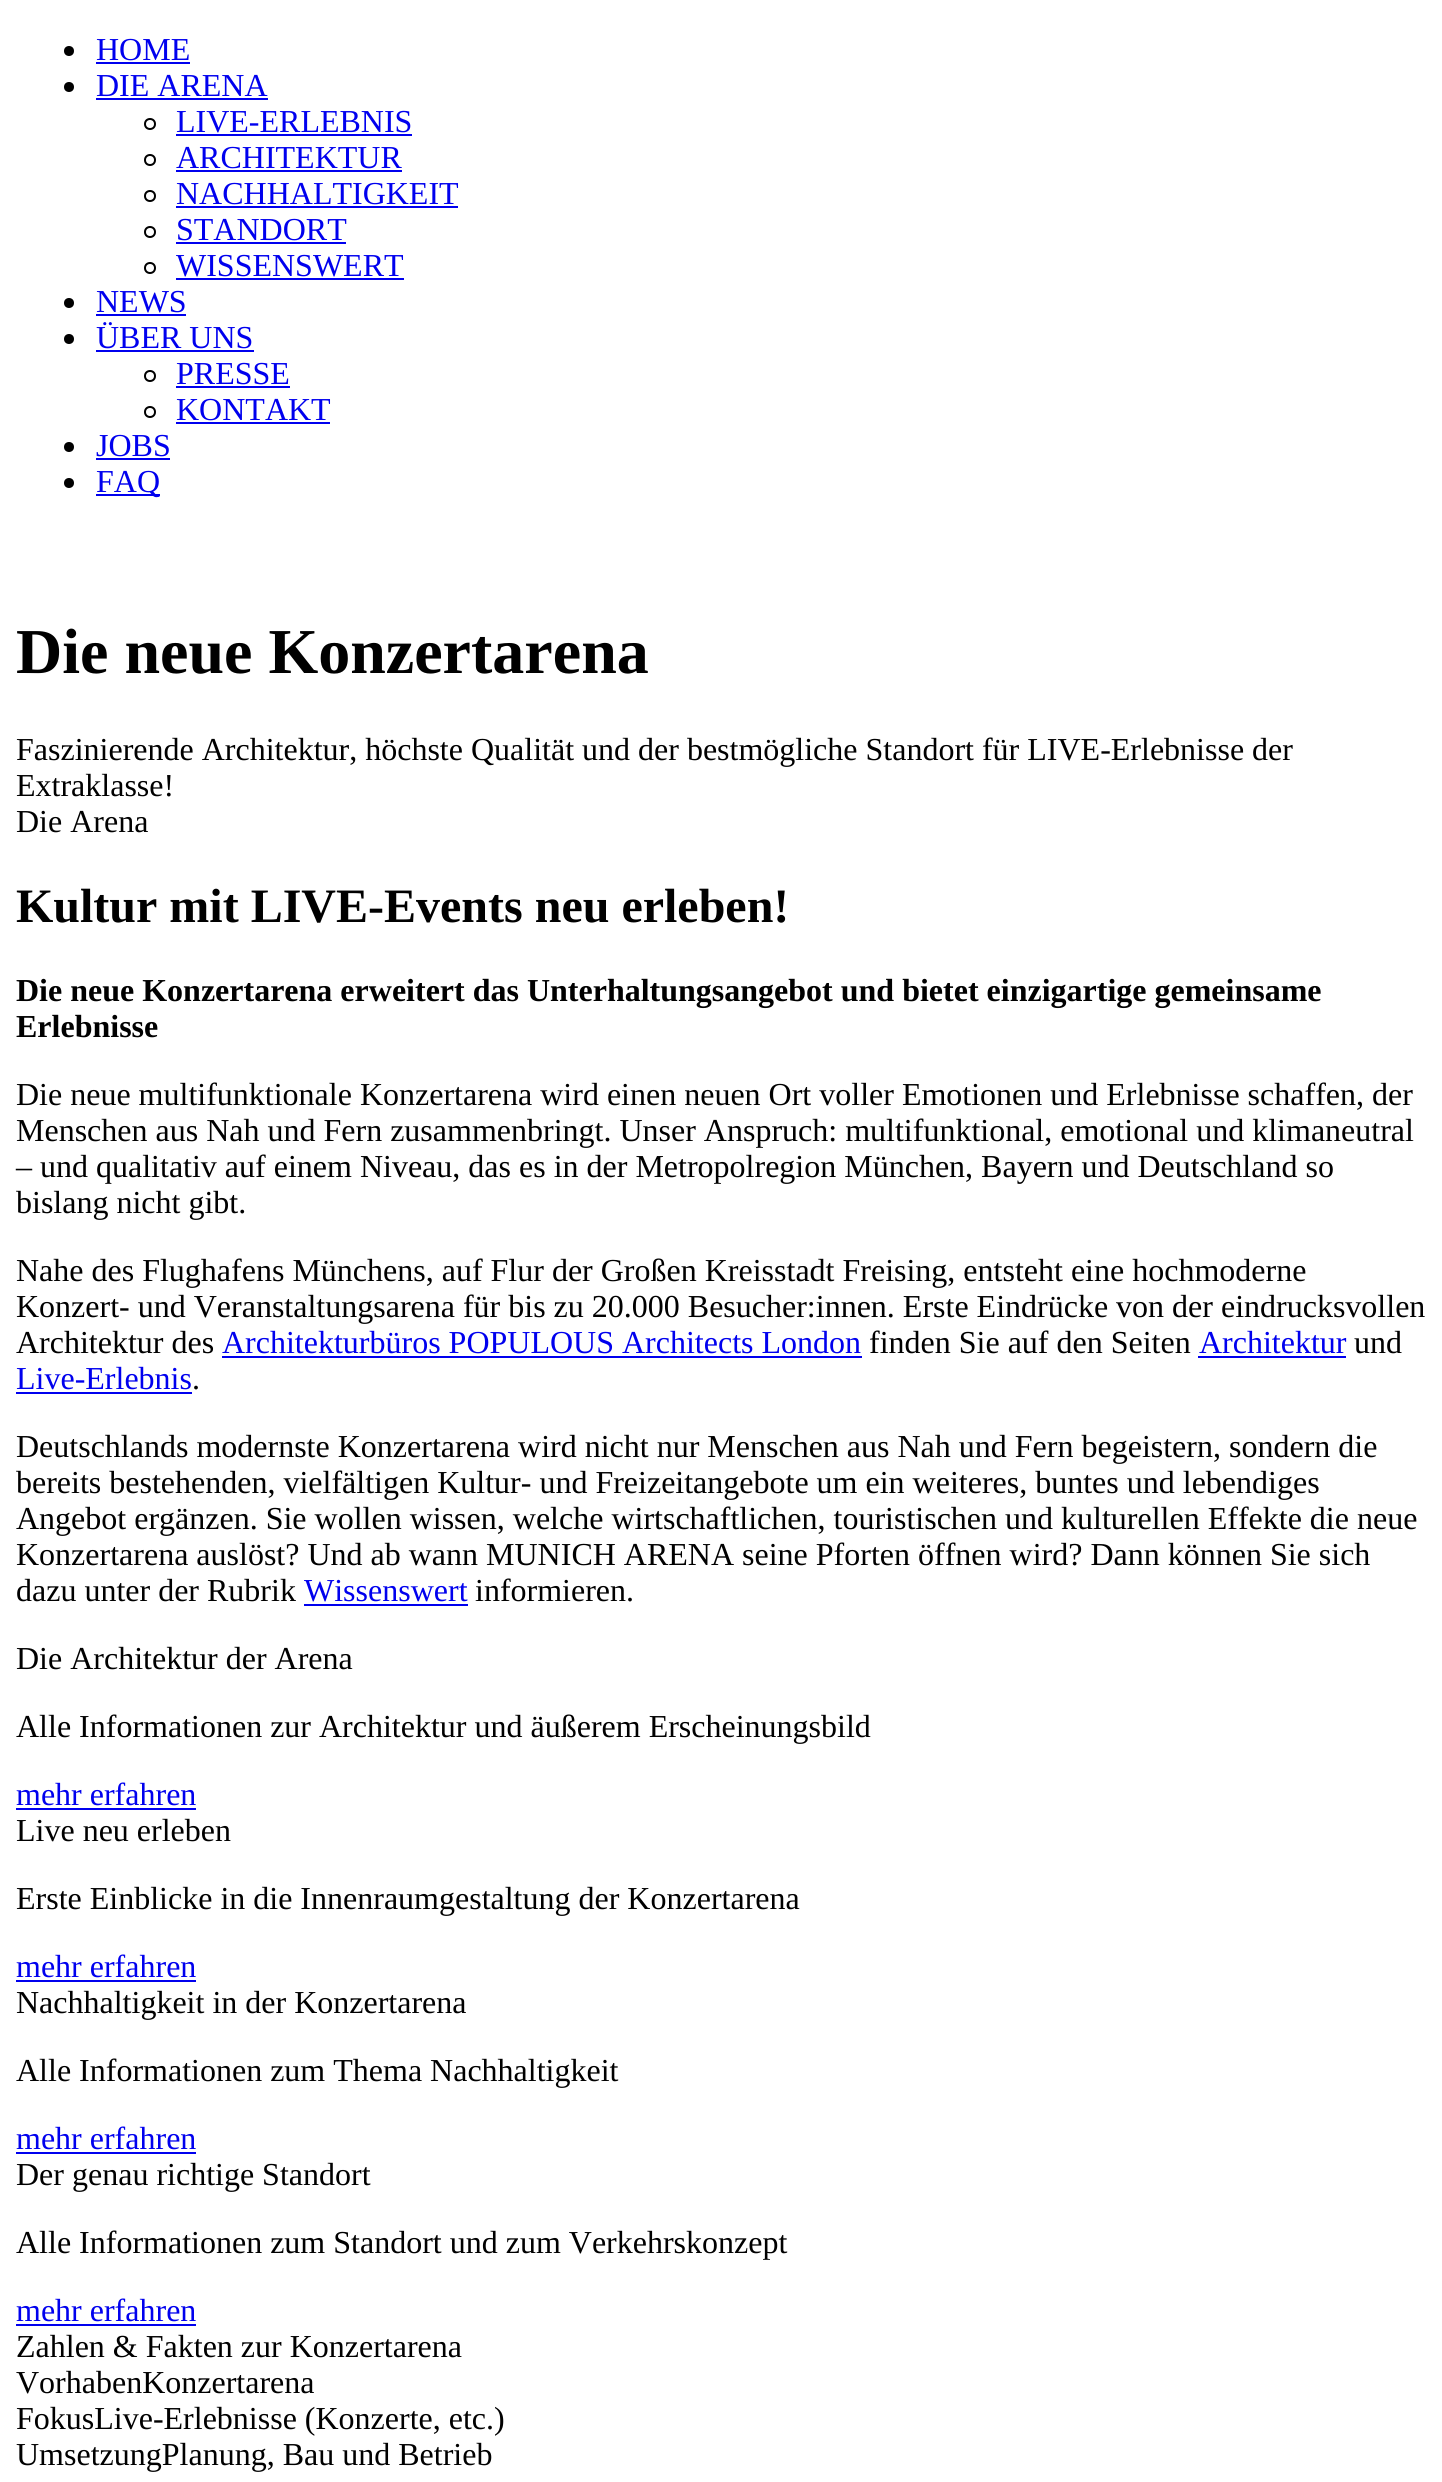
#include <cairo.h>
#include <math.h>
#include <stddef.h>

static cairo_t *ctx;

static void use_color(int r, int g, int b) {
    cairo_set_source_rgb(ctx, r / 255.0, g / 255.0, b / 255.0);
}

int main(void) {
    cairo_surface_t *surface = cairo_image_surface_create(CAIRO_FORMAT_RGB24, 1442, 2482);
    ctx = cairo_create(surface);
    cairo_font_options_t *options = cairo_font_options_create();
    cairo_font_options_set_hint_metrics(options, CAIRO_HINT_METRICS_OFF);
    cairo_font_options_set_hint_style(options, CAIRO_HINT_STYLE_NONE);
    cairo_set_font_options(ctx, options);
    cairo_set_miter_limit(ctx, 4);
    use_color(255, 255, 255);
    cairo_paint(ctx);
    use_color(0, 0, 0);
    cairo_arc(ctx, 69, 51, 5, 0, 2 * M_PI);
    cairo_fill(ctx);
    cairo_select_font_face(ctx, "Liberation Serif", CAIRO_FONT_SLANT_NORMAL, CAIRO_FONT_WEIGHT_NORMAL);
    cairo_set_font_size(ctx, 32);
    use_color(0, 0, 238);
    cairo_move_to(ctx, 96, 60);
    cairo_show_text(ctx, "HOME");
    cairo_rectangle(ctx, 96, 62, 94, 2);
    cairo_fill(ctx);
    use_color(0, 0, 0);
    cairo_arc(ctx, 69, 87, 5, 0, 2 * M_PI);
    cairo_fill(ctx);
    use_color(0, 0, 238);
    cairo_move_to(ctx, 96, 96);
    cairo_show_text(ctx, "DIE ARENA");
    cairo_rectangle(ctx, 96, 98, 172, 2);
    cairo_fill(ctx);
    cairo_arc(ctx, 150, 124, 5, 0, 2 * M_PI);
    use_color(0, 0, 0);
    cairo_stroke(ctx);
    use_color(0, 0, 238);
    cairo_move_to(ctx, 176, 132);
    cairo_show_text(ctx, "LIVE-ERLEBNIS");
    cairo_rectangle(ctx, 176, 134, 236, 2);
    cairo_fill(ctx);
    cairo_arc(ctx, 150, 160, 5, 0, 2 * M_PI);
    use_color(0, 0, 0);
    cairo_stroke(ctx);
    use_color(0, 0, 238);
    cairo_move_to(ctx, 176, 168);
    cairo_show_text(ctx, "ARCHITEKTUR");
    cairo_rectangle(ctx, 176, 170, 226, 2);
    cairo_fill(ctx);
    cairo_arc(ctx, 150, 196, 5, 0, 2 * M_PI);
    use_color(0, 0, 0);
    cairo_stroke(ctx);
    use_color(0, 0, 238);
    cairo_move_to(ctx, 176, 204);
    cairo_show_text(ctx, "NACHHALTIGKEIT");
    cairo_rectangle(ctx, 176, 206, 282, 2);
    cairo_fill(ctx);
    cairo_arc(ctx, 150, 232, 5, 0, 2 * M_PI);
    use_color(0, 0, 0);
    cairo_stroke(ctx);
    use_color(0, 0, 238);
    cairo_move_to(ctx, 176, 240);
    cairo_show_text(ctx, "STANDORT");
    cairo_rectangle(ctx, 176, 242, 170, 2);
    cairo_fill(ctx);
    cairo_arc(ctx, 150, 268, 5, 0, 2 * M_PI);
    use_color(0, 0, 0);
    cairo_stroke(ctx);
    use_color(0, 0, 238);
    cairo_move_to(ctx, 176, 276);
    cairo_show_text(ctx, "WISSENSWERT");
    cairo_rectangle(ctx, 176, 278, 228, 2);
    cairo_fill(ctx);
    use_color(0, 0, 0);
    cairo_arc(ctx, 69, 303, 5, 0, 2 * M_PI);
    cairo_fill(ctx);
    use_color(0, 0, 238);
    cairo_move_to(ctx, 96, 312);
    cairo_show_text(ctx, "NEWS");
    cairo_rectangle(ctx, 96, 314, 90, 2);
    cairo_fill(ctx);
    use_color(0, 0, 0);
    cairo_arc(ctx, 69, 339, 5, 0, 2 * M_PI);
    cairo_fill(ctx);
    use_color(0, 0, 238);
    cairo_move_to(ctx, 96, 348);
    cairo_show_text(ctx, "ÜBER UNS");
    cairo_rectangle(ctx, 96, 350, 158, 2);
    cairo_fill(ctx);
    cairo_arc(ctx, 150, 376, 5, 0, 2 * M_PI);
    use_color(0, 0, 0);
    cairo_stroke(ctx);
    use_color(0, 0, 238);
    cairo_move_to(ctx, 176, 384);
    cairo_show_text(ctx, "PRESSE");
    cairo_rectangle(ctx, 176, 386, 114, 2);
    cairo_fill(ctx);
    cairo_arc(ctx, 150, 412, 5, 0, 2 * M_PI);
    use_color(0, 0, 0);
    cairo_stroke(ctx);
    use_color(0, 0, 238);
    cairo_move_to(ctx, 176, 420);
    cairo_show_text(ctx, "KONTAKT");
    cairo_rectangle(ctx, 176, 422, 154, 2);
    cairo_fill(ctx);
    use_color(0, 0, 0);
    cairo_arc(ctx, 69, 447, 5, 0, 2 * M_PI);
    cairo_fill(ctx);
    use_color(0, 0, 238);
    cairo_move_to(ctx, 96, 456);
    cairo_show_text(ctx, "JOBS");
    cairo_rectangle(ctx, 96, 458, 74, 2);
    cairo_fill(ctx);
    use_color(0, 0, 0);
    cairo_arc(ctx, 69, 483, 5, 0, 2 * M_PI);
    cairo_fill(ctx);
    use_color(0, 0, 238);
    cairo_rectangle(ctx, 96, 494, 64, 2);
    cairo_fill(ctx);
    cairo_move_to(ctx, 96, 492);
    cairo_show_text(ctx, "FAQ");
    cairo_select_font_face(ctx, "Liberation Serif", CAIRO_FONT_SLANT_NORMAL, CAIRO_FONT_WEIGHT_BOLD);
    cairo_set_font_size(ctx, 64);
    use_color(0, 0, 0);
    cairo_move_to(ctx, 16, 673);
    cairo_show_text(ctx, "Die neue Konzertarena");
    cairo_select_font_face(ctx, "Liberation Serif", CAIRO_FONT_SLANT_NORMAL, CAIRO_FONT_WEIGHT_NORMAL);
    cairo_set_font_size(ctx, 32);
    cairo_move_to(ctx, 16, 760);
    cairo_show_text(ctx, "Faszinierende Architektur, höchste Qualität und der bestmögliche Standort für LIVE-Erlebnisse der");
    cairo_move_to(ctx, 16, 796);
    cairo_show_text(ctx, "Extraklasse!");
    cairo_move_to(ctx, 16, 832);
    cairo_show_text(ctx, "Die Arena");
    cairo_select_font_face(ctx, "Liberation Serif", CAIRO_FONT_SLANT_NORMAL, CAIRO_FONT_WEIGHT_BOLD);
    cairo_set_font_size(ctx, 48);
    cairo_move_to(ctx, 16, 922);
    cairo_show_text(ctx, "Kultur mit LIVE-Events neu erleben!");
    cairo_set_font_size(ctx, 32);
    cairo_move_to(ctx, 16, 1001);
    cairo_show_text(ctx, "Die neue Konzertarena erweitert das Unterhaltungsangebot und bietet einzigartige gemeinsame");
    cairo_move_to(ctx, 16, 1037);
    cairo_show_text(ctx, "Erlebnisse");
    cairo_select_font_face(ctx, "Liberation Serif", CAIRO_FONT_SLANT_NORMAL, CAIRO_FONT_WEIGHT_NORMAL);
    cairo_move_to(ctx, 16, 1105);
    cairo_show_text(ctx, "Die neue multifunktionale Konzertarena wird einen neuen Ort voller Emotionen und Erlebnisse schaffen, der");
    cairo_move_to(ctx, 16, 1141);
    cairo_show_text(ctx, "Menschen aus Nah und Fern zusammenbringt. Unser Anspruch: multifunktional, emotional und klimaneutral");
    cairo_move_to(ctx, 16, 1177);
    cairo_show_text(ctx, "– und qualitativ auf einem Niveau, das es in der Metropolregion München, Bayern und Deutschland so");
    cairo_move_to(ctx, 16, 1213);
    cairo_show_text(ctx, "bislang nicht gibt.");
    cairo_move_to(ctx, 16, 1281);
    cairo_show_text(ctx, "Nahe des Flughafens Münchens, auf Flur der Großen Kreisstadt Freising, entsteht eine hochmoderne");
    cairo_move_to(ctx, 16, 1317);
    cairo_show_text(ctx, "Konzert- und Veranstaltungsarena für bis zu 20.000 Besucher:innen. Erste Eindrücke von der eindrucksvollen");
    cairo_move_to(ctx, 16, 1353);
    cairo_show_text(ctx, "Architektur des");
    use_color(0, 0, 238);
    cairo_move_to(ctx, 222, 1353);
    cairo_show_text(ctx, "Architekturbüros POPULOUS Architects London");
    cairo_rectangle(ctx, 222, 1356, 640, 2);
    cairo_fill(ctx);
    use_color(0, 0, 0);
    cairo_move_to(ctx, 869, 1353);
    cairo_show_text(ctx, "finden Sie auf den Seiten");
    use_color(0, 0, 238);
    cairo_move_to(ctx, 1199, 1353);
    cairo_show_text(ctx, "Architektur");
    cairo_rectangle(ctx, 1198, 1356, 148, 2);
    cairo_fill(ctx);
    use_color(0, 0, 0);
    cairo_move_to(ctx, 1354, 1353);
    cairo_show_text(ctx, "und");
    use_color(0, 0, 238);
    cairo_move_to(ctx, 16, 1389);
    cairo_show_text(ctx, "Live-Erlebnis");
    cairo_rectangle(ctx, 16, 1392, 176, 2);
    cairo_fill(ctx);
    use_color(0, 0, 0);
    cairo_move_to(ctx, 192, 1389);
    cairo_show_text(ctx, ".");
    cairo_move_to(ctx, 16, 1457);
    cairo_show_text(ctx, "Deutschlands modernste Konzertarena wird nicht nur Menschen aus Nah und Fern begeistern, sondern die");
    cairo_move_to(ctx, 16, 1493);
    cairo_show_text(ctx, "bereits bestehenden, vielfältigen Kultur- und Freizeitangebote um ein weiteres, buntes und lebendiges");
    cairo_move_to(ctx, 16, 1529);
    cairo_show_text(ctx, "Angebot ergänzen. Sie wollen wissen, welche wirtschaftlichen, touristischen und kulturellen Effekte die neue");
    cairo_move_to(ctx, 16, 1565);
    cairo_show_text(ctx, "Konzertarena auslöst? Und ab wann MUNICH ARENA seine Pforten öffnen wird? Dann können Sie sich");
    cairo_move_to(ctx, 16, 1601);
    cairo_show_text(ctx, "dazu unter der Rubrik");
    use_color(0, 0, 238);
    cairo_move_to(ctx, 304, 1601);
    cairo_show_text(ctx, "Wissenswert");
    cairo_rectangle(ctx, 304, 1604, 164, 2);
    cairo_fill(ctx);
    use_color(0, 0, 0);
    cairo_move_to(ctx, 475, 1601);
    cairo_show_text(ctx, "informieren.");
    cairo_move_to(ctx, 16, 1669);
    cairo_show_text(ctx, "Die Architektur der Arena");
    cairo_move_to(ctx, 16, 1737);
    cairo_show_text(ctx, "Alle Informationen zur Architektur und äußerem Erscheinungsbild");
    use_color(0, 0, 238);
    cairo_move_to(ctx, 16, 1805);
    cairo_show_text(ctx, "mehr erfahren");
    cairo_rectangle(ctx, 16, 1808, 180, 2);
    cairo_fill(ctx);
    use_color(0, 0, 0);
    cairo_move_to(ctx, 16, 1841);
    cairo_show_text(ctx, "Live neu erleben");
    cairo_move_to(ctx, 16, 1909);
    cairo_show_text(ctx, "Erste Einblicke in die Innenraumgestaltung der Konzertarena");
    use_color(0, 0, 238);
    cairo_move_to(ctx, 16, 1977);
    cairo_show_text(ctx, "mehr erfahren");
    cairo_rectangle(ctx, 16, 1980, 180, 2);
    cairo_fill(ctx);
    use_color(0, 0, 0);
    cairo_move_to(ctx, 16, 2013);
    cairo_show_text(ctx, "Nachhaltigkeit in der Konzertarena");
    cairo_move_to(ctx, 16, 2081);
    cairo_show_text(ctx, "Alle Informationen zum Thema Nachhaltigkeit");
    use_color(0, 0, 238);
    cairo_move_to(ctx, 16, 2149);
    cairo_show_text(ctx, "mehr erfahren");
    cairo_rectangle(ctx, 16, 2152, 180, 2);
    cairo_fill(ctx);
    use_color(0, 0, 0);
    cairo_move_to(ctx, 16, 2185);
    cairo_show_text(ctx, "Der genau richtige Standort");
    cairo_move_to(ctx, 16, 2253);
    cairo_show_text(ctx, "Alle Informationen zum Standort und zum Verkehrskonzept");
    use_color(0, 0, 238);
    cairo_move_to(ctx, 16, 2321);
    cairo_show_text(ctx, "mehr erfahren");
    cairo_rectangle(ctx, 16, 2324, 180, 2);
    cairo_fill(ctx);
    use_color(0, 0, 0);
    cairo_move_to(ctx, 16, 2357);
    cairo_show_text(ctx, "Zahlen & Fakten zur Konzertarena");
    cairo_move_to(ctx, 16, 2393);
    cairo_show_text(ctx, "VorhabenKonzertarena");
    cairo_move_to(ctx, 16, 2429);
    cairo_show_text(ctx, "FokusLive-Erlebnisse (Konzerte, etc.)");
    cairo_move_to(ctx, 16, 2465);
    cairo_show_text(ctx, "UmsetzungPlanung, Bau und Betrieb");
    cairo_surface_write_to_png(surface, "result.png");
    cairo_font_options_destroy(options);
    cairo_destroy(ctx);
    cairo_surface_destroy(surface);
    return 0;
}
